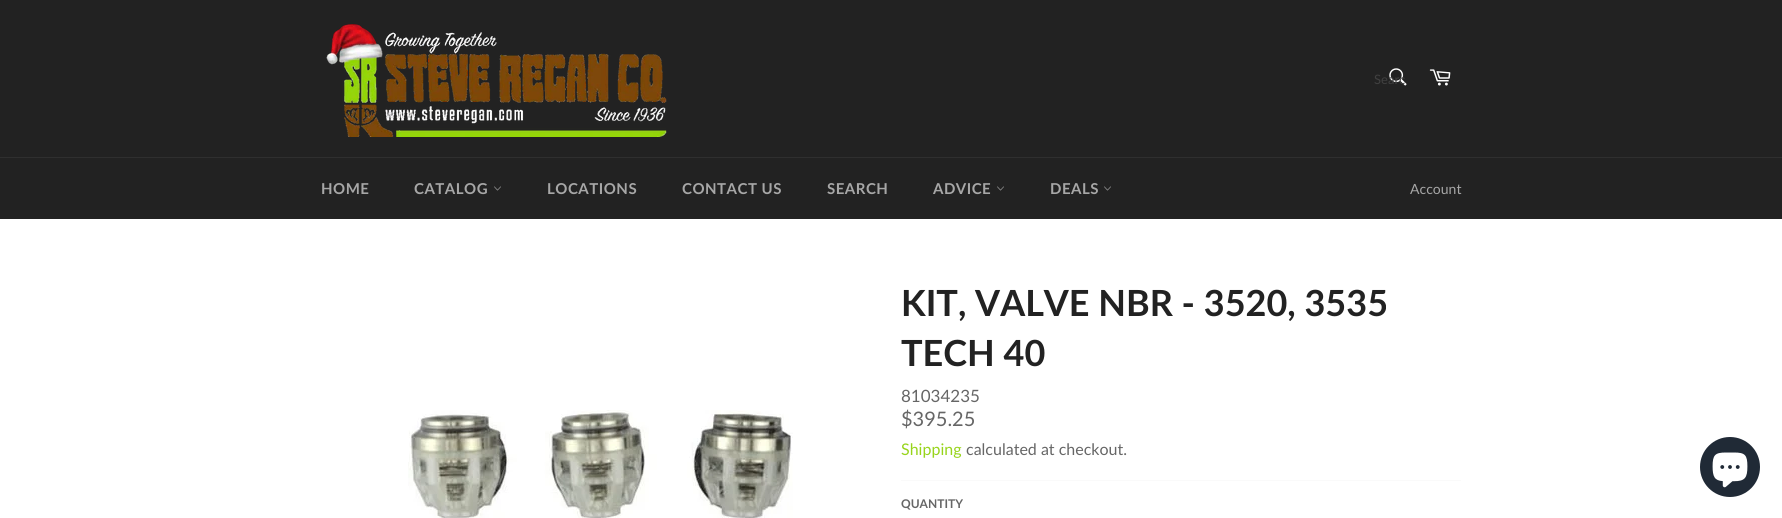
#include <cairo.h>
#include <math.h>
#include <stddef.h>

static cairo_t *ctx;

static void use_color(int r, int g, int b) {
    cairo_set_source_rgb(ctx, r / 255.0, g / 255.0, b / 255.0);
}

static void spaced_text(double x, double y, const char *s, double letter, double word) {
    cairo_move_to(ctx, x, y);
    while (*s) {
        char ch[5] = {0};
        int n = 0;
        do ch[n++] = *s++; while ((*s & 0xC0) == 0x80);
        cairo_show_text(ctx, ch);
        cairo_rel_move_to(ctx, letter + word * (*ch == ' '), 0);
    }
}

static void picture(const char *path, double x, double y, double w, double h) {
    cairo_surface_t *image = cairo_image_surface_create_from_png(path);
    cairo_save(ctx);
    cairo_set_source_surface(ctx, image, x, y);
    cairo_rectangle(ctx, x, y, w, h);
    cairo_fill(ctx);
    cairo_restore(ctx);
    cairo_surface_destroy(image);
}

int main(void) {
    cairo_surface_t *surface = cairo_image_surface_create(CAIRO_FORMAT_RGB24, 1782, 518);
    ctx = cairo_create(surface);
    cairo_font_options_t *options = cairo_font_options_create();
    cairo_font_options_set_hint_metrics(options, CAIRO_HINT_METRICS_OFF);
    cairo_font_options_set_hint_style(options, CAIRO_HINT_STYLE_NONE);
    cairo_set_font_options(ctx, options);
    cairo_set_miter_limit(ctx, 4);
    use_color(34, 34, 34);
    cairo_paint(ctx);
    picture("img1.png", 326, 24, 341, 113);
    picture("img2.png", 1389, 68, 18, 18);
    cairo_select_font_face(ctx, "Lato", CAIRO_FONT_SLANT_NORMAL, CAIRO_FONT_WEIGHT_NORMAL);
    cairo_set_font_size(ctx, 13);
    use_color(64, 64, 64);
    cairo_move_to(ctx, 1374, 84);
    cairo_show_text(ctx, "Searc");
    picture("img3.png", 1429, 69, 22, 17);
    use_color(47, 47, 47);
    cairo_rectangle(ctx, 0, 157, 1782, 1);
    cairo_fill(ctx);
    cairo_select_font_face(ctx, "Lato", CAIRO_FONT_SLANT_NORMAL, CAIRO_FONT_WEIGHT_BOLD);
    cairo_set_font_size(ctx, 15);
    use_color(167, 167, 167);
    spaced_text(321, 194, "HOME", 0.5, 0);
    spaced_text(414, 194, "CATALOG", 0.5, 0);
    picture("img4.png", 494, 186, 7, 5);
    spaced_text(547, 194, "LOCATIONS", 0.5, 0);
    spaced_text(682, 194, "CONTACT US", 0.5, 0);
    spaced_text(827, 194, "SEARCH", 0.5, 0);
    spaced_text(933, 194, "ADVICE", 0.5, 0);
    picture("img4.png", 997, 186, 7, 5);
    spaced_text(1050, 194, "DEALS", 0.5, 0);
    picture("img4.png", 1104, 186, 7, 5);
    cairo_select_font_face(ctx, "Lato", CAIRO_FONT_SLANT_NORMAL, CAIRO_FONT_WEIGHT_NORMAL);
    cairo_set_font_size(ctx, 14);
    cairo_move_to(ctx, 1410, 194);
    cairo_show_text(ctx, "Account");
    use_color(255, 255, 255);
    cairo_rectangle(ctx, 0, 219, 1782, 299);
    cairo_fill(ctx);
    picture("img5.png", 408, 410, 385, 108);
    cairo_select_font_face(ctx, "Lato", CAIRO_FONT_SLANT_NORMAL, CAIRO_FONT_WEIGHT_BOLD);
    cairo_set_font_size(ctx, 36);
    use_color(34, 34, 34);
    cairo_move_to(ctx, 901, 316);
    cairo_show_text(ctx, "KIT, VALVE NBR - 3520, 3535");
    cairo_move_to(ctx, 901, 366);
    cairo_show_text(ctx, "TECH 40");
    cairo_select_font_face(ctx, "Lato", CAIRO_FONT_SLANT_NORMAL, CAIRO_FONT_WEIGHT_NORMAL);
    cairo_set_font_size(ctx, 17);
    use_color(102, 102, 102);
    cairo_move_to(ctx, 901, 402);
    cairo_show_text(ctx, "81034235");
    cairo_set_font_size(ctx, 20);
    cairo_move_to(ctx, 901, 426);
    cairo_show_text(ctx, "$395.25");
    cairo_set_font_size(ctx, 16);
    use_color(151, 212, 27);
    cairo_move_to(ctx, 901, 455);
    cairo_show_text(ctx, "Shipping");
    use_color(102, 102, 102);
    cairo_move_to(ctx, 966, 455);
    cairo_show_text(ctx, "calculated at checkout.");
    use_color(250, 250, 250);
    cairo_rectangle(ctx, 901, 480, 560, 1);
    cairo_fill(ctx);
    cairo_select_font_face(ctx, "Lato", CAIRO_FONT_SLANT_NORMAL, CAIRO_FONT_WEIGHT_BOLD);
    cairo_set_font_size(ctx, 12);
    use_color(102, 102, 102);
    cairo_move_to(ctx, 901, 508);
    cairo_show_text(ctx, "QUANTITY");
    use_color(32, 42, 54);
    cairo_new_path(ctx);
    cairo_arc(ctx, 1730, 467, 30, 0, 2 * M_PI);
    cairo_fill(ctx);
    picture("img6.png", 1712, 452, 36, 36);
    cairo_surface_write_to_png(surface, "result.png");
    cairo_font_options_destroy(options);
    cairo_destroy(ctx);
    cairo_surface_destroy(surface);
    return 0;
}
